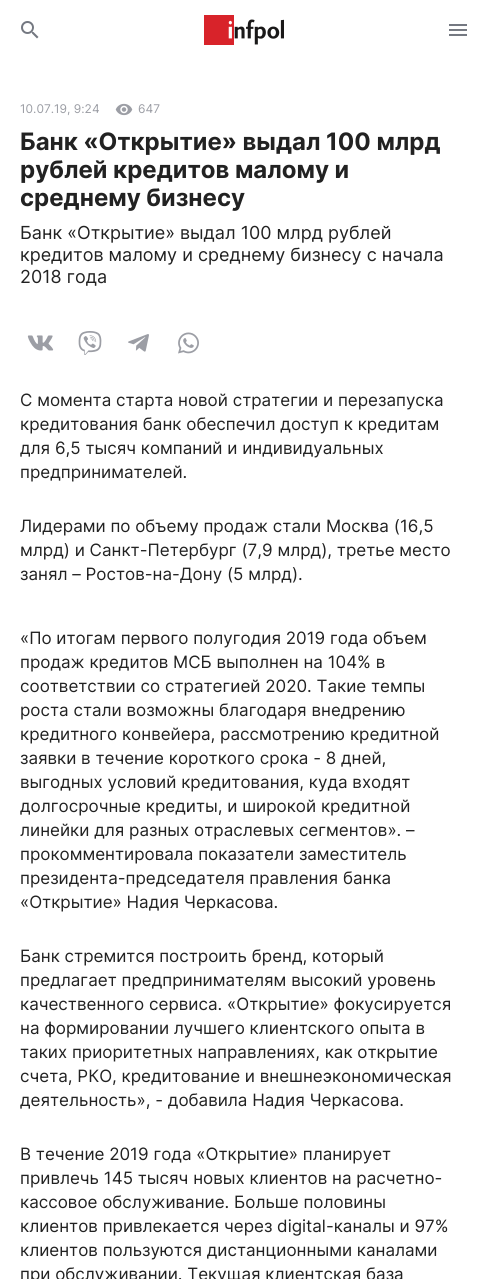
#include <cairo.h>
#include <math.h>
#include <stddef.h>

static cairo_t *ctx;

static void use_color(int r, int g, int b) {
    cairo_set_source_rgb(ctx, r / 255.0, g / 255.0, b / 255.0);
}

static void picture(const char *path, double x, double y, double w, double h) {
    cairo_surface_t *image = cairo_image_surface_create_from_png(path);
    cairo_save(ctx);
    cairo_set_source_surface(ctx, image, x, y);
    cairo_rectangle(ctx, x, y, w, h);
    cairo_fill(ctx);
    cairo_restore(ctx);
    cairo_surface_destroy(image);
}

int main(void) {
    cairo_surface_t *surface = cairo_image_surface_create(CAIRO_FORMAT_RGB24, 488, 1279);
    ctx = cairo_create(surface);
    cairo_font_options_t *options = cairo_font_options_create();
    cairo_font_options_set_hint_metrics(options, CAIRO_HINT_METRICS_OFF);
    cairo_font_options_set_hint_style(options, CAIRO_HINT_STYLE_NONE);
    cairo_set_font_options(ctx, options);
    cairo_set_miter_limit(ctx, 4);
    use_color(255, 255, 255);
    cairo_paint(ctx);
    picture("img1.png", 204, 15, 80, 30);
    picture("img2.png", 21, 21, 18, 18);
    picture("img3.png", 449, 24, 18, 12);
    cairo_select_font_face(ctx, "Inter", CAIRO_FONT_SLANT_NORMAL, CAIRO_FONT_WEIGHT_NORMAL);
    cairo_set_font_size(ctx, 12);
    use_color(156, 158, 165);
    cairo_move_to(ctx, 20, 113);
    cairo_show_text(ctx, "10.07.19, 9:24");
    picture("img4.png", 115, 103, 18, 13);
    cairo_move_to(ctx, 138, 113);
    cairo_show_text(ctx, "647");
    cairo_select_font_face(ctx, "Inter", CAIRO_FONT_SLANT_NORMAL, CAIRO_FONT_WEIGHT_BOLD);
    cairo_set_font_size(ctx, 24);
    use_color(34, 34, 34);
    cairo_move_to(ctx, 20, 150);
    cairo_show_text(ctx, "Банк «Открытие» выдал 100 млрд");
    cairo_move_to(ctx, 20, 178);
    cairo_show_text(ctx, "рублей кредитов малому и");
    cairo_move_to(ctx, 20, 206);
    cairo_show_text(ctx, "среднему бизнесу");
    cairo_select_font_face(ctx, "Inter", CAIRO_FONT_SLANT_NORMAL, CAIRO_FONT_WEIGHT_NORMAL);
    cairo_set_font_size(ctx, 18);
    cairo_move_to(ctx, 20, 239);
    cairo_show_text(ctx, "Банк «Открытие» выдал 100 млрд рублей");
    cairo_move_to(ctx, 20, 261);
    cairo_show_text(ctx, "кредитов малому и среднему бизнесу с начала");
    cairo_move_to(ctx, 20, 283);
    cairo_show_text(ctx, "2018 года");
    picture("img5.png", 27, 335, 27, 16);
    picture("img6.png", 78, 331, 24, 24);
    picture("img7.png", 128, 334, 21, 18);
    picture("img8.png", 178, 332, 21, 22);
    cairo_set_font_size(ctx, 17);
    cairo_move_to(ctx, 20, 406);
    cairo_show_text(ctx, "С момента старта новой стратегии и перезапуска");
    cairo_move_to(ctx, 20, 430);
    cairo_show_text(ctx, "кредитования банк обеспечил доступ к кредитам");
    cairo_move_to(ctx, 20, 454);
    cairo_show_text(ctx, "для 6,5 тысяч компаний и индивидуальных");
    cairo_move_to(ctx, 20, 478);
    cairo_show_text(ctx, "предпринимателей.");
    cairo_move_to(ctx, 20, 532);
    cairo_show_text(ctx, "Лидерами по объему продаж стали Москва (16,5");
    cairo_move_to(ctx, 20, 556);
    cairo_show_text(ctx, "млрд) и Санкт-Петербург (7,9 млрд), третье место");
    cairo_move_to(ctx, 20, 580);
    cairo_show_text(ctx, "занял – Ростов-на-Дону (5 млрд).");
    cairo_move_to(ctx, 20, 644);
    cairo_show_text(ctx, "«По итогам первого полугодия 2019 года объем");
    cairo_move_to(ctx, 20, 668);
    cairo_show_text(ctx, "продаж кредитов МСБ выполнен на 104% в");
    cairo_move_to(ctx, 20, 692);
    cairo_show_text(ctx, "соответствии со стратегией 2020. Такие темпы");
    cairo_move_to(ctx, 20, 716);
    cairo_show_text(ctx, "роста стали возможны благодаря внедрению");
    cairo_move_to(ctx, 20, 740);
    cairo_show_text(ctx, "кредитного конвейера, рассмотрению кредитной");
    cairo_move_to(ctx, 20, 764);
    cairo_show_text(ctx, "заявки в течение короткого срока - 8 дней,");
    cairo_move_to(ctx, 20, 788);
    cairo_show_text(ctx, "выгодных условий кредитования, куда входят");
    cairo_move_to(ctx, 20, 812);
    cairo_show_text(ctx, "долгосрочные кредиты, и широкой кредитной");
    cairo_move_to(ctx, 20, 836);
    cairo_show_text(ctx, "линейки для разных отраслевых сегментов». –");
    cairo_move_to(ctx, 20, 860);
    cairo_show_text(ctx, "прокомментировала показатели заместитель");
    cairo_move_to(ctx, 20, 884);
    cairo_show_text(ctx, "президента-председателя правления банка");
    cairo_move_to(ctx, 20, 908);
    cairo_show_text(ctx, "«Открытие» Надия Черкасова.");
    cairo_move_to(ctx, 20, 962);
    cairo_show_text(ctx, "Банк стремится построить бренд, который");
    cairo_move_to(ctx, 20, 986);
    cairo_show_text(ctx, "предлагает предпринимателям высокий уровень");
    cairo_move_to(ctx, 20, 1010);
    cairo_show_text(ctx, "качественного сервиса. «Открытие» фокусируется");
    cairo_move_to(ctx, 20, 1034);
    cairo_show_text(ctx, "на формировании лучшего клиентского опыта в");
    cairo_move_to(ctx, 20, 1058);
    cairo_show_text(ctx, "таких приоритетных направлениях, как открытие");
    cairo_move_to(ctx, 20, 1082);
    cairo_show_text(ctx, "счета, РКО, кредитование и внешнеэкономическая");
    cairo_move_to(ctx, 20, 1106);
    cairo_show_text(ctx, "деятельность», - добавила Надия Черкасова.");
    cairo_move_to(ctx, 20, 1160);
    cairo_show_text(ctx, "В течение 2019 года «Открытие» планирует");
    cairo_move_to(ctx, 20, 1184);
    cairo_show_text(ctx, "привлечь 145 тысяч новых клиентов на расчетно-");
    cairo_move_to(ctx, 20, 1208);
    cairo_show_text(ctx, "кассовое обслуживание. Больше половины");
    cairo_move_to(ctx, 20, 1232);
    cairo_show_text(ctx, "клиентов привлекается через digital-каналы и 97%");
    cairo_move_to(ctx, 20, 1256);
    cairo_show_text(ctx, "клиентов пользуются дистанционными каналами");
    cairo_move_to(ctx, 20, 1280);
    cairo_show_text(ctx, "при обслуживании. Текущая клиентская база");
    cairo_surface_write_to_png(surface, "result.png");
    cairo_font_options_destroy(options);
    cairo_destroy(ctx);
    cairo_surface_destroy(surface);
    return 0;
}
